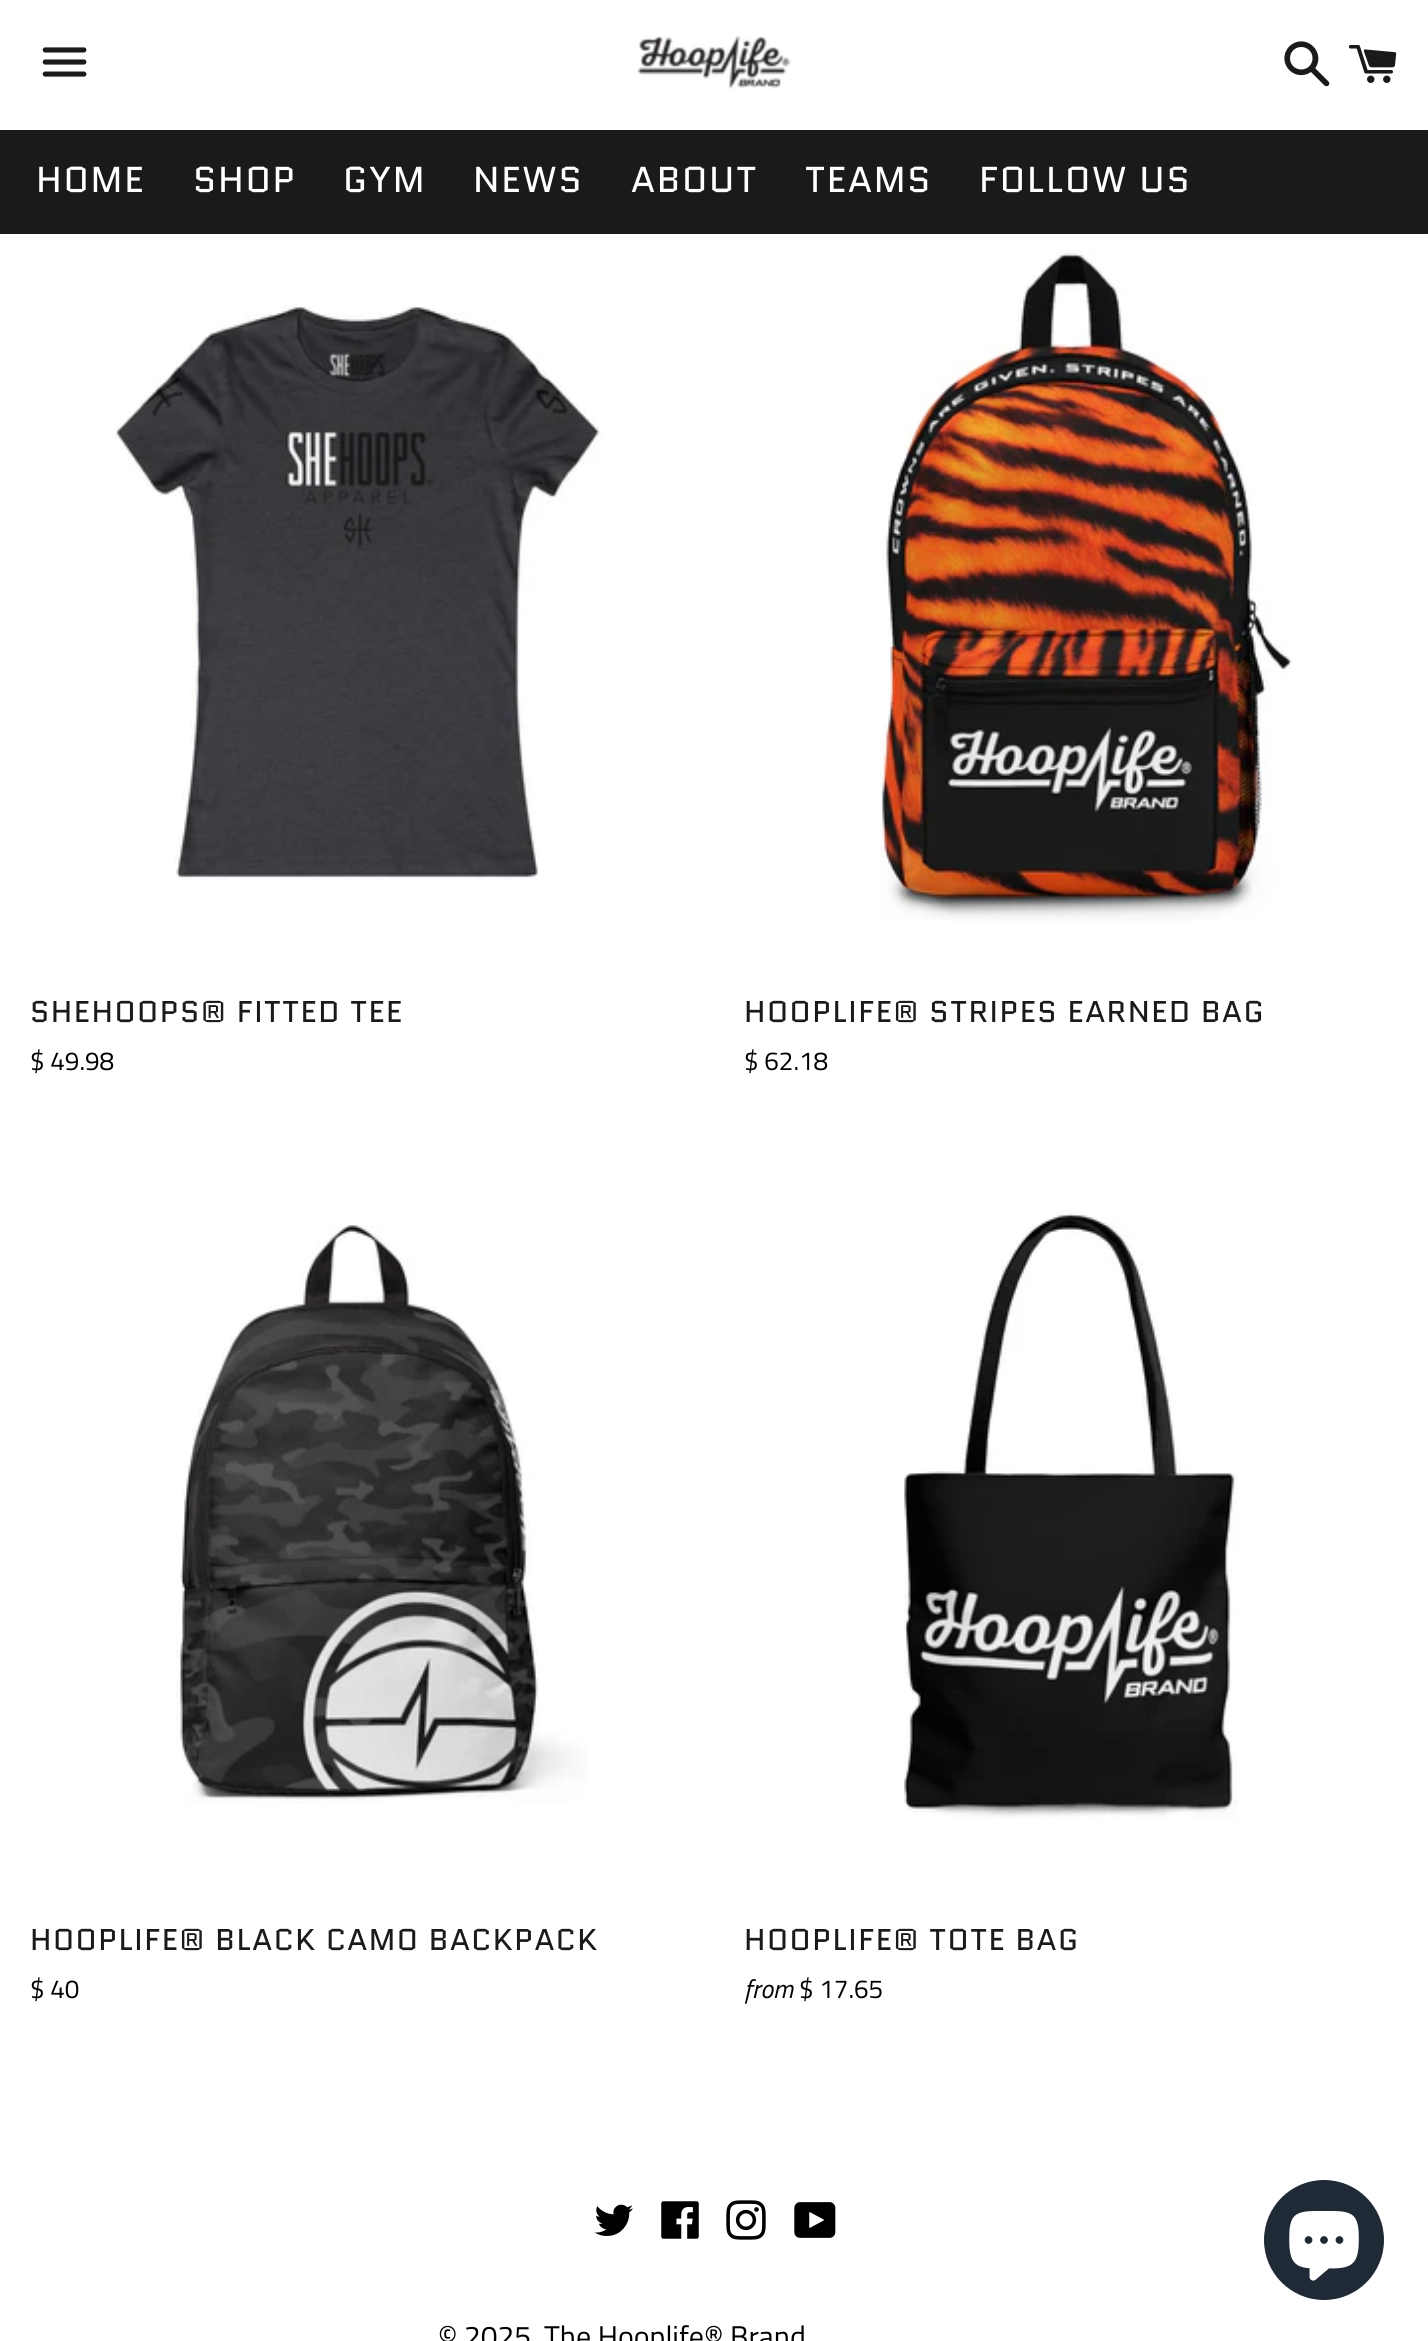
#include <cairo.h>
#include <math.h>
#include <stddef.h>

static cairo_t *ctx;

static void use_color(int r, int g, int b) {
    cairo_set_source_rgb(ctx, r / 255.0, g / 255.0, b / 255.0);
}

static void spaced_text(double x, double y, const char *s, double letter, double word) {
    cairo_move_to(ctx, x, y);
    while (*s) {
        char ch[5] = {0};
        int n = 0;
        do ch[n++] = *s++; while ((*s & 0xC0) == 0x80);
        cairo_show_text(ctx, ch);
        cairo_rel_move_to(ctx, letter + word * (*ch == ' '), 0);
    }
}

static void picture(const char *path, double x, double y, double w, double h) {
    cairo_surface_t *image = cairo_image_surface_create_from_png(path);
    cairo_save(ctx);
    cairo_set_source_surface(ctx, image, x, y);
    cairo_rectangle(ctx, x, y, w, h);
    cairo_fill(ctx);
    cairo_restore(ctx);
    cairo_surface_destroy(image);
}

int main(void) {
    cairo_surface_t *surface = cairo_image_surface_create(CAIRO_FORMAT_RGB24, 1428, 2341);
    ctx = cairo_create(surface);
    cairo_font_options_t *options = cairo_font_options_create();
    cairo_font_options_set_hint_metrics(options, CAIRO_HINT_METRICS_OFF);
    cairo_font_options_set_hint_style(options, CAIRO_HINT_STYLE_NONE);
    cairo_set_font_options(ctx, options);
    cairo_set_miter_limit(ctx, 4);
    cairo_pattern_t *gradient;
    use_color(255, 255, 255);
    cairo_paint(ctx);
    picture("img1.png", 42, 47, 45, 30);
    picture("img2.png", 637, 36, 154, 53);
    picture("img3.png", 1284, 41, 46, 46);
    picture("img4.png", 1348, 45, 49, 38);
    use_color(26, 26, 26);
    cairo_rectangle(ctx, 0, 130, 1427, 104);
    cairo_fill(ctx);
    cairo_select_font_face(ctx, "Quantico", CAIRO_FONT_SLANT_NORMAL, CAIRO_FONT_WEIGHT_NORMAL);
    cairo_set_font_size(ctx, 36);
    use_color(255, 255, 255);
    spaced_text(36, 192, "HOME", 1.75, 0);
    spaced_text(193, 192, "SHOP", 1.75, 0);
    spaced_text(343, 192, "GYM", 1.75, 0);
    spaced_text(473, 192, "NEWS", 1.75, 0);
    spaced_text(631, 192, "ABOUT", 1.75, 0);
    spaced_text(805, 192, "TEAMS", 1.75, 0);
    spaced_text(979, 192, "FOLLOW US", 1.75, 0);
    gradient = cairo_pattern_create_linear(1178, 182, 1428, 182);
    cairo_pattern_add_color_stop_rgba(gradient, 0, 0.102, 0.102, 0.102, 0);
    cairo_pattern_add_color_stop_rgba(gradient, 1, 0.102, 0.102, 0.102, 1);
    cairo_set_source(ctx, gradient);
    cairo_pattern_destroy(gradient);
    cairo_rectangle(ctx, 1183, 130, 245, 104);
    cairo_fill(ctx);
    picture("img5.png", 116, 305, 487, 575);
    cairo_set_font_size(ctx, 30);
    use_color(26, 26, 26);
    spaced_text(30, 1022, "SHEHOOPS® FITTED TEE", 1.5, 0);
    cairo_select_font_face(ctx, "Titillium Web", CAIRO_FONT_SLANT_NORMAL, CAIRO_FONT_WEIGHT_NORMAL);
    cairo_set_font_size(ctx, 26);
    use_color(0, 0, 0);
    cairo_move_to(ctx, 30, 1070);
    cairo_show_text(ctx, "$ 49.98");
    picture("img6.png", 876, 250, 417, 671);
    cairo_select_font_face(ctx, "Quantico", CAIRO_FONT_SLANT_NORMAL, CAIRO_FONT_WEIGHT_NORMAL);
    cairo_set_font_size(ctx, 30);
    use_color(26, 26, 26);
    spaced_text(744, 1022, "HOOPLIFE® STRIPES EARNED BAG", 1.5, 0);
    cairo_select_font_face(ctx, "Titillium Web", CAIRO_FONT_SLANT_NORMAL, CAIRO_FONT_WEIGHT_NORMAL);
    cairo_set_font_size(ctx, 26);
    use_color(0, 0, 0);
    cairo_move_to(ctx, 744, 1070);
    cairo_show_text(ctx, "$ 62.18");
    picture("img7.png", 175, 1225, 413, 579);
    cairo_select_font_face(ctx, "Quantico", CAIRO_FONT_SLANT_NORMAL, CAIRO_FONT_WEIGHT_NORMAL);
    cairo_set_font_size(ctx, 30);
    use_color(26, 26, 26);
    spaced_text(30, 1950, "HOOPLIFE® BLACK CAMO BACKPACK", 1.5, 0);
    cairo_select_font_face(ctx, "Titillium Web", CAIRO_FONT_SLANT_NORMAL, CAIRO_FONT_WEIGHT_NORMAL);
    cairo_set_font_size(ctx, 26);
    use_color(0, 0, 0);
    cairo_move_to(ctx, 30, 1998);
    cairo_show_text(ctx, "$ 40");
    picture("img8.png", 904, 1212, 334, 608);
    cairo_select_font_face(ctx, "Quantico", CAIRO_FONT_SLANT_NORMAL, CAIRO_FONT_WEIGHT_NORMAL);
    cairo_set_font_size(ctx, 30);
    use_color(26, 26, 26);
    spaced_text(744, 1950, "HOOPLIFE® TOTE BAG", 1.5, 0);
    cairo_select_font_face(ctx, "Titillium Web", CAIRO_FONT_SLANT_ITALIC, CAIRO_FONT_WEIGHT_NORMAL);
    cairo_set_font_size(ctx, 26);
    use_color(0, 0, 0);
    cairo_move_to(ctx, 744, 1998);
    cairo_show_text(ctx, "from");
    cairo_select_font_face(ctx, "Titillium Web", CAIRO_FONT_SLANT_NORMAL, CAIRO_FONT_WEIGHT_NORMAL);
    cairo_move_to(ctx, 799, 1998);
    cairo_show_text(ctx, "$ 17.65");
    picture("img9.png", 594, 2204, 39, 32);
    picture("img10.png", 661, 2201, 38, 38);
    picture("img11.png", 726, 2200, 40, 40);
    picture("img12.png", 794, 2202, 42, 36);
    cairo_set_font_size(ctx, 30);
    cairo_move_to(ctx, 438, 2347);
    cairo_show_text(ctx, "© 2025");
    cairo_move_to(ctx, 544, 2347);
    cairo_show_text(ctx, "The Hooplife® Brand");
    use_color(32, 42, 54);
    cairo_new_path(ctx);
    cairo_arc(ctx, 1324, 2240, 60, 0, 2 * M_PI);
    cairo_fill(ctx);
    picture("img13.png", 1289, 2211, 70, 70);
    cairo_surface_write_to_png(surface, "result.png");
    cairo_font_options_destroy(options);
    cairo_destroy(ctx);
    cairo_surface_destroy(surface);
    return 0;
}
